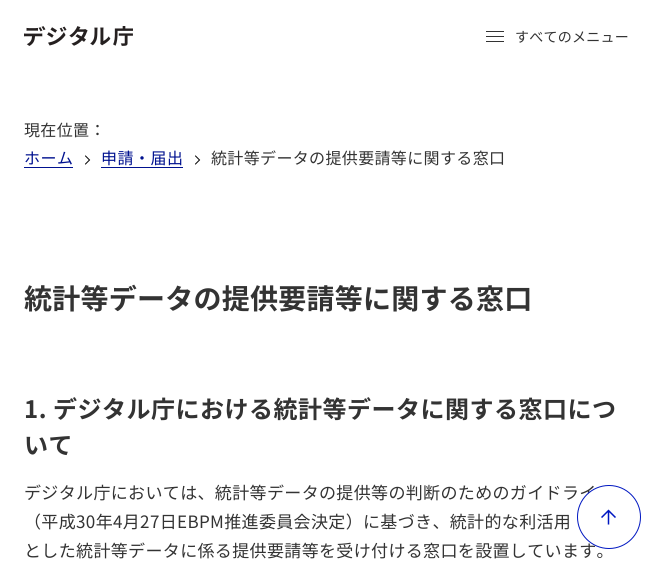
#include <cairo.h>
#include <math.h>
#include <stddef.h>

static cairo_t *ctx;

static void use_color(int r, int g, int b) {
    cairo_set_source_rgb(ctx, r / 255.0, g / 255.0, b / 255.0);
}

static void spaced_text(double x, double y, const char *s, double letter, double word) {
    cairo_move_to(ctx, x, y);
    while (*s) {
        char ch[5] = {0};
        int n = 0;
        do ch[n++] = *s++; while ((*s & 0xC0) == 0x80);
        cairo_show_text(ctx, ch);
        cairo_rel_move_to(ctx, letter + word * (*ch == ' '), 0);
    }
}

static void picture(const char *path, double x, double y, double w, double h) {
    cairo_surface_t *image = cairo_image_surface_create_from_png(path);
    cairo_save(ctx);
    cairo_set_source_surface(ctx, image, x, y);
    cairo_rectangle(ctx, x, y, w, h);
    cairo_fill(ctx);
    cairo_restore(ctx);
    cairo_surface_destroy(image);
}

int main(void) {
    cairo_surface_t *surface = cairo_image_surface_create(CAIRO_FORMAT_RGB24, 661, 569);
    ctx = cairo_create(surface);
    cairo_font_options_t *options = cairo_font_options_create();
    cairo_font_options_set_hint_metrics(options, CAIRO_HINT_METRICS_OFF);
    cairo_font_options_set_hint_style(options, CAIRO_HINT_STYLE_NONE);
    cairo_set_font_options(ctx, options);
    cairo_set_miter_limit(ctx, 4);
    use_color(255, 255, 255);
    cairo_paint(ctx);
    picture("img1.png", 24, 26, 109, 20);
    picture("img2.png", 486, 31, 18, 11);
    cairo_select_font_face(ctx, "Noto Sans JP", CAIRO_FONT_SLANT_NORMAL, CAIRO_FONT_WEIGHT_NORMAL);
    cairo_set_font_size(ctx, 14);
    use_color(51, 51, 51);
    spaced_text(515, 42, "すべてのメニュー", 0.25, 0);
    cairo_set_font_size(ctx, 16);
    spaced_text(24, 136, "現在位置：", 0.35, 0);
    use_color(0, 17, 143);
    spaced_text(24, 164, "ホーム", 0.5, 0);
    cairo_rectangle(ctx, 24, 167, 49, 1);
    cairo_fill(ctx);
    picture("img3.png", 85, 155, 6, 10);
    spaced_text(101, 164, "申請・届出", 0.5, 0);
    cairo_rectangle(ctx, 101, 167, 82, 1);
    cairo_fill(ctx);
    picture("img3.png", 195, 155, 6, 10);
    use_color(51, 51, 51);
    spaced_text(211, 164, "統計等データの提供要請等に関する窓口", 0.35, 0);
    cairo_select_font_face(ctx, "Noto Sans JP", CAIRO_FONT_SLANT_NORMAL, CAIRO_FONT_WEIGHT_BOLD);
    cairo_set_font_size(ctx, 28);
    spaced_text(24, 309, "統計等データの提供要請等に関する窓口", 0.25, 0);
    cairo_set_font_size(ctx, 24);
    spaced_text(24, 418, "1. デジタル庁における統計等データに関する窓口につ", 0.5, 0);
    spaced_text(24, 454, "いて", 0.5, 0);
    cairo_select_font_face(ctx, "Noto Sans JP", CAIRO_FONT_SLANT_NORMAL, CAIRO_FONT_WEIGHT_NORMAL);
    cairo_set_font_size(ctx, 17);
    spaced_text(24, 499, "デジタル庁においては、統計等データの提供等の判断のためのガイドライ", 0.35, 0);
    spaced_text(24, 528, "（平成30年4月27日EBPM推進委員会決定）に基づき、統計的な利活用", 0.35, 0);
    spaced_text(24, 557, "とした統計等データに係る提供要請等を受け付ける窓口を設置しています。", 0.35, 0);
    use_color(255, 255, 255);
    cairo_new_path(ctx);
    cairo_arc(ctx, 609, 517, 31.5, 0, 2 * M_PI);
    cairo_fill_preserve(ctx);
    use_color(0, 23, 193);
    cairo_set_line_width(ctx, 1);
    cairo_stroke(ctx);
    picture("img4.png", 601, 509, 15, 16);
    cairo_surface_write_to_png(surface, "result.png");
    cairo_font_options_destroy(options);
    cairo_destroy(ctx);
    cairo_surface_destroy(surface);
    return 0;
}
